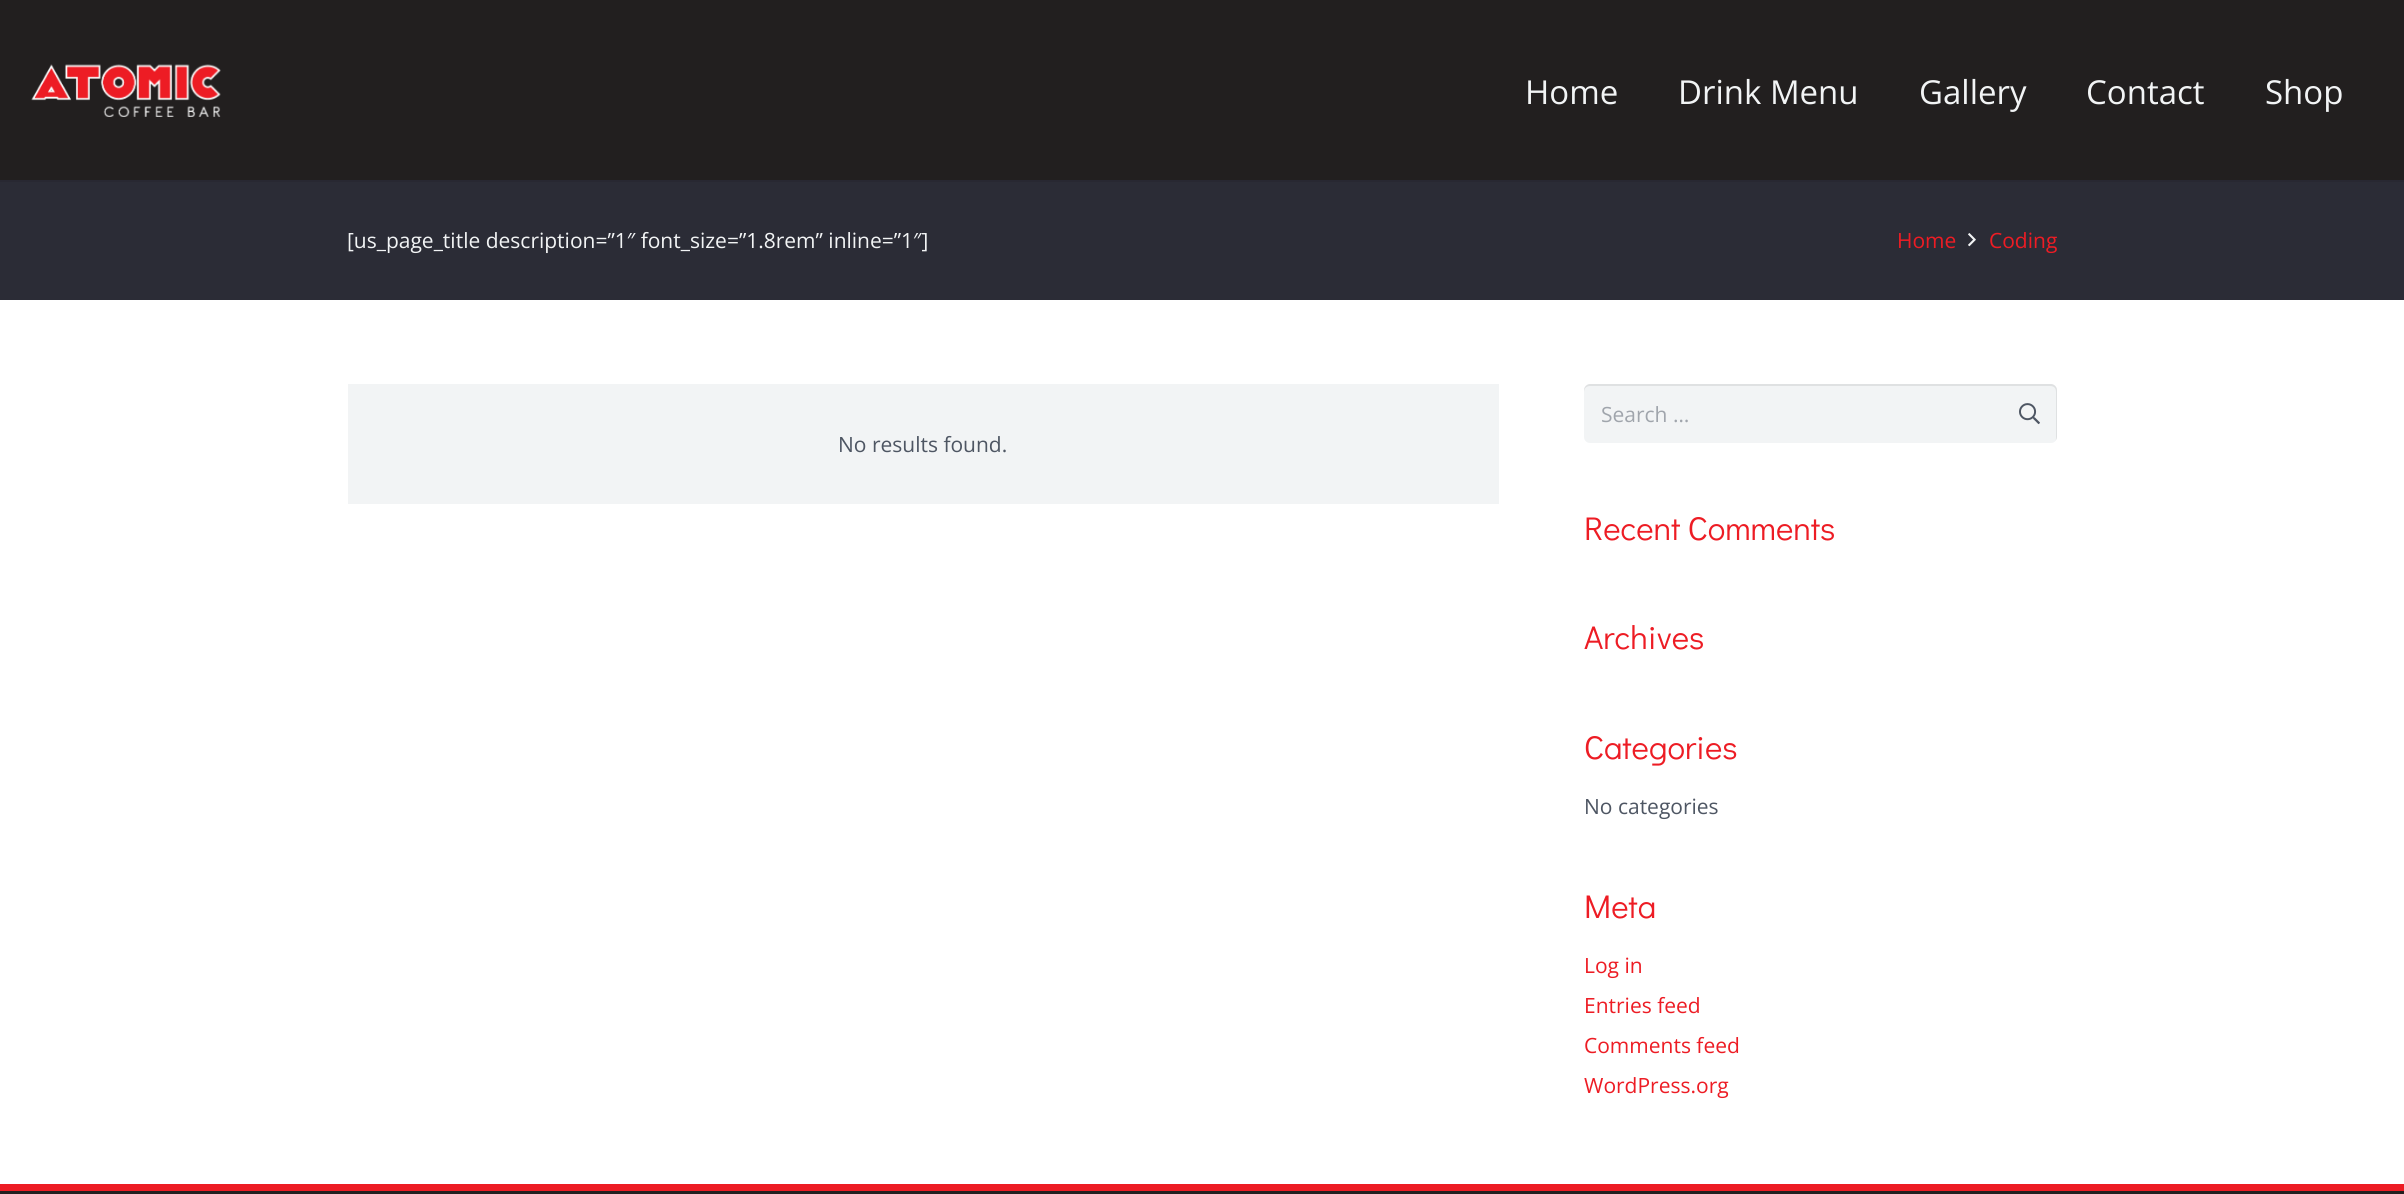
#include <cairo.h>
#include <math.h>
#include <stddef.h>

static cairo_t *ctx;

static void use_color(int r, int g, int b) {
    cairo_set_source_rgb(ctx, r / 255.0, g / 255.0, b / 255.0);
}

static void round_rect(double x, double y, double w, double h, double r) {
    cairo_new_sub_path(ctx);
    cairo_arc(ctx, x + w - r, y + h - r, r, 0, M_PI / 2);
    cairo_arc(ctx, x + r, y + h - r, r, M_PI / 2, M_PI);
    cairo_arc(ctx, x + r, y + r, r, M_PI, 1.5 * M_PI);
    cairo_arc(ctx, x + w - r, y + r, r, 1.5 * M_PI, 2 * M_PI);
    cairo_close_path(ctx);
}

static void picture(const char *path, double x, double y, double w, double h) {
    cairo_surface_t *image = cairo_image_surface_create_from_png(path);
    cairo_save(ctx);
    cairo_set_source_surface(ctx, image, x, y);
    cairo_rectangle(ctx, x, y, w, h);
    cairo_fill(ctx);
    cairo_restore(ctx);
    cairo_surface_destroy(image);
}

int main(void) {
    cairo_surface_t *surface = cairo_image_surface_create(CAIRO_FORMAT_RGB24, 2404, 1194);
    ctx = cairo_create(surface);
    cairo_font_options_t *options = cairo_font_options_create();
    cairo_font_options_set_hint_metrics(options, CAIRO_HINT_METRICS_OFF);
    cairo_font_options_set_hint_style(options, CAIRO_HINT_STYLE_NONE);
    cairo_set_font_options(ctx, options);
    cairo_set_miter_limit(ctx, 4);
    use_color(255, 255, 255);
    cairo_paint(ctx);
    use_color(40, 40, 50);
    cairo_new_path(ctx);
    cairo_move_to(ctx, 0, 180);
    cairo_line_to(ctx, 0, 182);
    cairo_line_to(ctx, 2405, 182);
    cairo_line_to(ctx, 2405, 2);
    cairo_line_to(ctx, 2404, 2);
    cairo_line_to(ctx, 2404, 180);
    cairo_close_path(ctx);
    cairo_fill(ctx);
    use_color(34, 31, 31);
    cairo_rectangle(ctx, 0, 0, 2404, 180);
    cairo_fill(ctx);
    picture("img1.png", 31, 64, 190, 53);
    cairo_select_font_face(ctx, "Open Sans", CAIRO_FONT_SLANT_NORMAL, CAIRO_FONT_WEIGHT_NORMAL);
    cairo_set_font_size(ctx, 33);
    use_color(242, 244, 245);
    cairo_move_to(ctx, 1525, 104);
    cairo_show_text(ctx, "Home");
    cairo_move_to(ctx, 1678, 104);
    cairo_show_text(ctx, "Drink Menu");
    cairo_move_to(ctx, 1919, 104);
    cairo_show_text(ctx, "Gallery");
    cairo_move_to(ctx, 2086, 104);
    cairo_show_text(ctx, "Contact");
    cairo_move_to(ctx, 2265, 104);
    cairo_show_text(ctx, "Shop");
    use_color(43, 44, 54);
    cairo_rectangle(ctx, 0, 182, 2404, 118);
    cairo_fill(ctx);
    cairo_set_font_size(ctx, 21);
    use_color(242, 244, 245);
    cairo_move_to(ctx, 347, 248);
    cairo_show_text(ctx, "[us_page_title description=”1″ font_size=”1.8rem” inline=”1″]");
    use_color(237, 28, 36);
    cairo_move_to(ctx, 1897, 248);
    cairo_show_text(ctx, "Home");
    picture("img2.png", 1968, 233, 8, 14);
    cairo_move_to(ctx, 1989, 248);
    cairo_show_text(ctx, "Coding");
    use_color(242, 244, 245);
    cairo_rectangle(ctx, 348, 384, 1151, 120);
    cairo_fill(ctx);
    use_color(78, 86, 99);
    cairo_move_to(ctx, 838, 452);
    cairo_show_text(ctx, "No results found.");
    use_color(242, 244, 245);
    round_rect(1584, 384, 473, 59, 6);
    cairo_fill(ctx);
    cairo_set_source_rgba(ctx, 0, 0, 0, 0.08);
    cairo_new_path(ctx);
    cairo_move_to(ctx, 1590, 386);
    cairo_line_to(ctx, 2050, 386);
    cairo_curve_to(ctx, 2054, 386, 2056, 388, 2056, 392);
    cairo_line_to(ctx, 2056, 438);
    cairo_curve_to(ctx, 2056, 439, 2056, 440, 2055, 441);
    cairo_curve_to(ctx, 2056, 440, 2057, 439, 2057, 437);
    cairo_line_to(ctx, 2057, 390);
    cairo_curve_to(ctx, 2057, 387, 2054, 384, 2051, 384);
    cairo_line_to(ctx, 1590, 384);
    cairo_curve_to(ctx, 1587, 384, 1584, 387, 1584, 390);
    cairo_line_to(ctx, 1584, 392);
    cairo_curve_to(ctx, 1584, 388, 1587, 386, 1590, 386);
    cairo_close_path(ctx);
    cairo_fill(ctx);
    use_color(160, 165, 172);
    cairo_move_to(ctx, 1601, 422);
    cairo_show_text(ctx, "Search …");
    picture("img3.png", 2019, 403, 21, 22);
    cairo_select_font_face(ctx, "Didact Gothic", CAIRO_FONT_SLANT_NORMAL, CAIRO_FONT_WEIGHT_NORMAL);
    cairo_set_font_size(ctx, 33);
    use_color(237, 28, 36);
    cairo_move_to(ctx, 1584, 540);
    cairo_show_text(ctx, "Recent Comments");
    cairo_move_to(ctx, 1584, 649);
    cairo_show_text(ctx, "Archives");
    cairo_move_to(ctx, 1584, 759);
    cairo_show_text(ctx, "Categories");
    cairo_select_font_face(ctx, "Open Sans", CAIRO_FONT_SLANT_NORMAL, CAIRO_FONT_WEIGHT_NORMAL);
    cairo_set_font_size(ctx, 21);
    use_color(78, 86, 99);
    cairo_move_to(ctx, 1584, 814);
    cairo_show_text(ctx, "No categories");
    cairo_select_font_face(ctx, "Didact Gothic", CAIRO_FONT_SLANT_NORMAL, CAIRO_FONT_WEIGHT_NORMAL);
    cairo_set_font_size(ctx, 33);
    use_color(237, 28, 36);
    cairo_move_to(ctx, 1584, 918);
    cairo_show_text(ctx, "Meta");
    cairo_select_font_face(ctx, "Open Sans", CAIRO_FONT_SLANT_NORMAL, CAIRO_FONT_WEIGHT_NORMAL);
    cairo_set_font_size(ctx, 21);
    cairo_move_to(ctx, 1584, 973);
    cairo_show_text(ctx, "Log in");
    cairo_move_to(ctx, 1584, 1013);
    cairo_show_text(ctx, "Entries feed");
    cairo_move_to(ctx, 1584, 1053);
    cairo_show_text(ctx, "Comments feed");
    cairo_move_to(ctx, 1584, 1093);
    cairo_show_text(ctx, "WordPress.org");
    cairo_rectangle(ctx, 0, 1184, 2404, 7);
    cairo_fill(ctx);
    use_color(34, 31, 31);
    cairo_rectangle(ctx, 0, 1191, 2404, 3);
    cairo_fill(ctx);
    cairo_surface_write_to_png(surface, "result.png");
    cairo_font_options_destroy(options);
    cairo_destroy(ctx);
    cairo_surface_destroy(surface);
    return 0;
}
